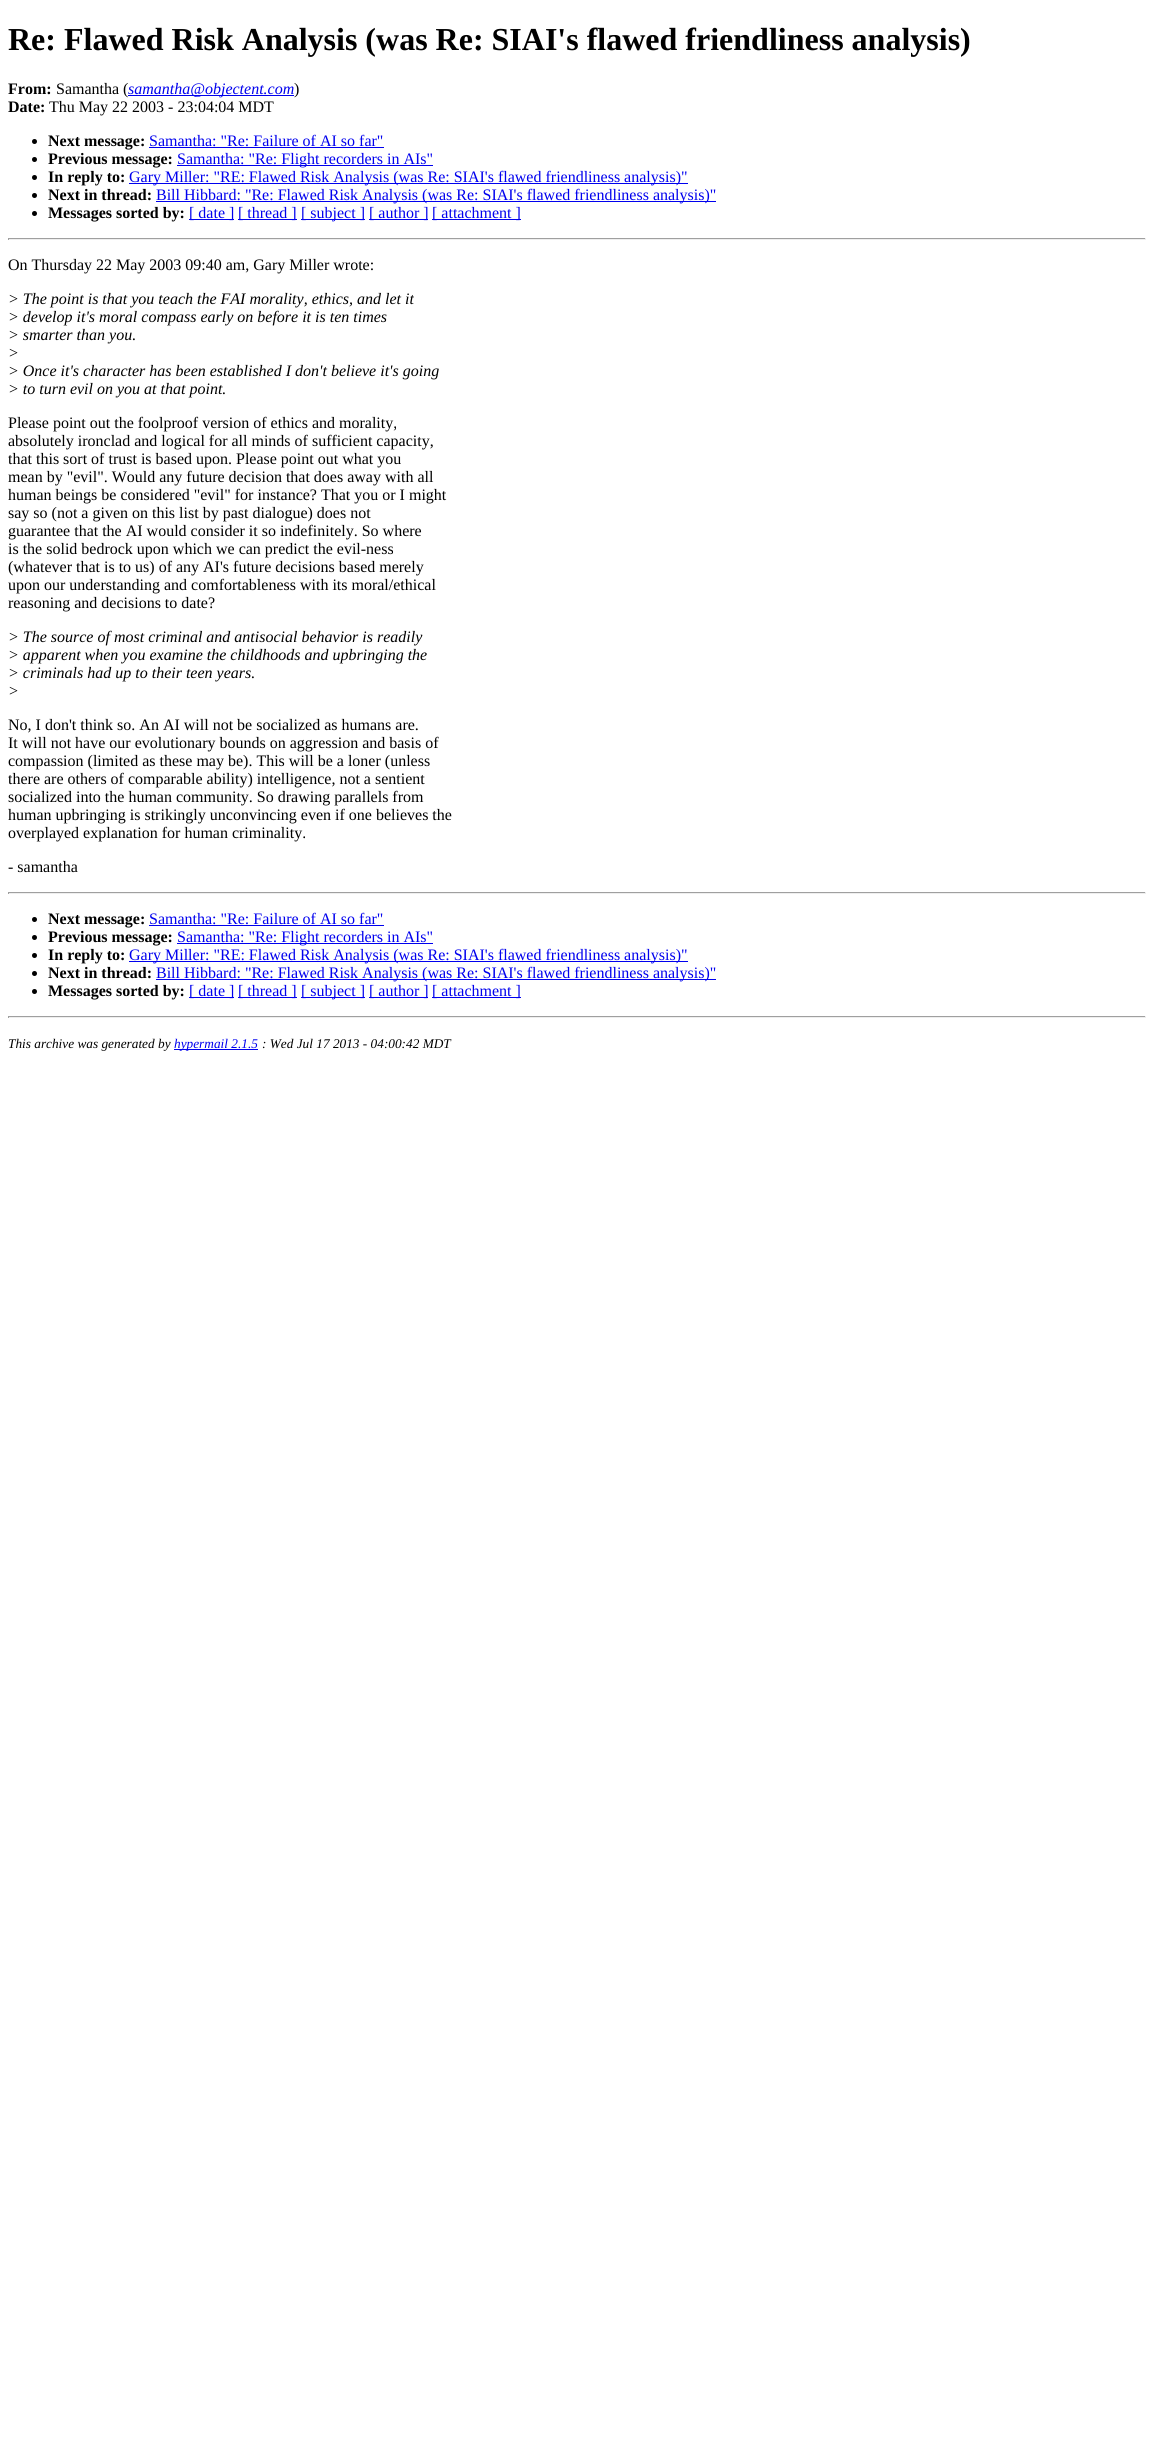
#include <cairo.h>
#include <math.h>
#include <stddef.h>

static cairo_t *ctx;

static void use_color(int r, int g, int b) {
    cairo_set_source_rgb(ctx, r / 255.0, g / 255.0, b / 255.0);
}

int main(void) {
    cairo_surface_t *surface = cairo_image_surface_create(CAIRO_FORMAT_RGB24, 1154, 2451);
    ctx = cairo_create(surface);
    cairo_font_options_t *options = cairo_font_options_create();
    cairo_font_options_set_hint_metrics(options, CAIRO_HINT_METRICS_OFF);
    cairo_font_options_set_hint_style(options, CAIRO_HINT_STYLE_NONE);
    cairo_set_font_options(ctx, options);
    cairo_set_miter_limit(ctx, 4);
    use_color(255, 255, 255);
    cairo_paint(ctx);
    cairo_select_font_face(ctx, "Liberation Serif", CAIRO_FONT_SLANT_NORMAL, CAIRO_FONT_WEIGHT_BOLD);
    cairo_set_font_size(ctx, 32);
    use_color(0, 0, 0);
    cairo_move_to(ctx, 8, 50);
    cairo_show_text(ctx, "Re: Flawed Risk Analysis (was Re: SIAI's flawed friendliness analysis)");
    cairo_set_font_size(ctx, 16);
    cairo_move_to(ctx, 8, 94);
    cairo_show_text(ctx, "From:");
    cairo_select_font_face(ctx, "Liberation Serif", CAIRO_FONT_SLANT_NORMAL, CAIRO_FONT_WEIGHT_NORMAL);
    cairo_move_to(ctx, 56, 94);
    cairo_show_text(ctx, "Samantha (");
    use_color(0, 0, 238);
    cairo_rectangle(ctx, 128, 95, 166, 1);
    cairo_fill(ctx);
    cairo_select_font_face(ctx, "Liberation Serif", CAIRO_FONT_SLANT_ITALIC, CAIRO_FONT_WEIGHT_NORMAL);
    cairo_move_to(ctx, 128, 94);
    cairo_show_text(ctx, "samantha@objectent.com");
    cairo_select_font_face(ctx, "Liberation Serif", CAIRO_FONT_SLANT_NORMAL, CAIRO_FONT_WEIGHT_NORMAL);
    use_color(0, 0, 0);
    cairo_move_to(ctx, 294, 94);
    cairo_show_text(ctx, ")");
    cairo_select_font_face(ctx, "Liberation Serif", CAIRO_FONT_SLANT_NORMAL, CAIRO_FONT_WEIGHT_BOLD);
    cairo_move_to(ctx, 8, 112);
    cairo_show_text(ctx, "Date:");
    cairo_select_font_face(ctx, "Liberation Serif", CAIRO_FONT_SLANT_NORMAL, CAIRO_FONT_WEIGHT_NORMAL);
    cairo_move_to(ctx, 49, 112);
    cairo_show_text(ctx, "Thu May 22 2003 - 23:04:04 MDT");
    cairo_new_path(ctx);
    cairo_arc(ctx, 34.5, 141.5, 2.5, 0, 2 * M_PI);
    cairo_fill(ctx);
    cairo_select_font_face(ctx, "Liberation Serif", CAIRO_FONT_SLANT_NORMAL, CAIRO_FONT_WEIGHT_BOLD);
    cairo_move_to(ctx, 48, 146);
    cairo_show_text(ctx, "Next message:");
    cairo_select_font_face(ctx, "Liberation Serif", CAIRO_FONT_SLANT_NORMAL, CAIRO_FONT_WEIGHT_NORMAL);
    use_color(0, 0, 238);
    cairo_move_to(ctx, 149, 146);
    cairo_show_text(ctx, "Samantha: \"Re: Failure of AI so far\"");
    cairo_rectangle(ctx, 149, 147, 235, 1);
    cairo_fill(ctx);
    use_color(0, 0, 0);
    cairo_arc(ctx, 34.5, 159.5, 2.5, 0, 2 * M_PI);
    cairo_fill(ctx);
    cairo_select_font_face(ctx, "Liberation Serif", CAIRO_FONT_SLANT_NORMAL, CAIRO_FONT_WEIGHT_BOLD);
    cairo_move_to(ctx, 48, 164);
    cairo_show_text(ctx, "Previous message:");
    use_color(0, 0, 238);
    cairo_rectangle(ctx, 177, 165, 256, 1);
    cairo_fill(ctx);
    cairo_select_font_face(ctx, "Liberation Serif", CAIRO_FONT_SLANT_NORMAL, CAIRO_FONT_WEIGHT_NORMAL);
    cairo_move_to(ctx, 177, 164);
    cairo_show_text(ctx, "Samantha: \"Re: Flight recorders in AIs\"");
    use_color(0, 0, 0);
    cairo_new_path(ctx);
    cairo_arc(ctx, 34.5, 177.5, 2.5, 0, 2 * M_PI);
    cairo_fill(ctx);
    cairo_select_font_face(ctx, "Liberation Serif", CAIRO_FONT_SLANT_NORMAL, CAIRO_FONT_WEIGHT_BOLD);
    cairo_move_to(ctx, 48, 182);
    cairo_show_text(ctx, "In reply to:");
    use_color(0, 0, 238);
    cairo_rectangle(ctx, 129, 183, 559, 1);
    cairo_fill(ctx);
    cairo_select_font_face(ctx, "Liberation Serif", CAIRO_FONT_SLANT_NORMAL, CAIRO_FONT_WEIGHT_NORMAL);
    cairo_move_to(ctx, 129, 182);
    cairo_show_text(ctx, "Gary Miller: \"RE: Flawed Risk Analysis (was Re: SIAI's flawed friendliness analysis)\"");
    use_color(0, 0, 0);
    cairo_new_path(ctx);
    cairo_arc(ctx, 34.5, 195.5, 2.5, 0, 2 * M_PI);
    cairo_fill(ctx);
    cairo_select_font_face(ctx, "Liberation Serif", CAIRO_FONT_SLANT_NORMAL, CAIRO_FONT_WEIGHT_BOLD);
    cairo_move_to(ctx, 48, 200);
    cairo_show_text(ctx, "Next in thread:");
    use_color(0, 0, 238);
    cairo_rectangle(ctx, 156, 201, 560, 1);
    cairo_fill(ctx);
    cairo_select_font_face(ctx, "Liberation Serif", CAIRO_FONT_SLANT_NORMAL, CAIRO_FONT_WEIGHT_NORMAL);
    cairo_move_to(ctx, 156, 200);
    cairo_show_text(ctx, "Bill Hibbard: \"Re: Flawed Risk Analysis (was Re: SIAI's flawed friendliness analysis)\"");
    use_color(0, 0, 0);
    cairo_new_path(ctx);
    cairo_arc(ctx, 34.5, 213.5, 2.5, 0, 2 * M_PI);
    cairo_fill(ctx);
    cairo_select_font_face(ctx, "Liberation Serif", CAIRO_FONT_SLANT_NORMAL, CAIRO_FONT_WEIGHT_BOLD);
    cairo_move_to(ctx, 48, 218);
    cairo_show_text(ctx, "Messages sorted by:");
    use_color(0, 0, 238);
    cairo_rectangle(ctx, 189, 219, 45, 1);
    cairo_fill(ctx);
    cairo_select_font_face(ctx, "Liberation Serif", CAIRO_FONT_SLANT_NORMAL, CAIRO_FONT_WEIGHT_NORMAL);
    cairo_move_to(ctx, 189, 218);
    cairo_show_text(ctx, "[ date ]");
    cairo_rectangle(ctx, 238, 219, 59, 1);
    cairo_fill(ctx);
    cairo_move_to(ctx, 238, 218);
    cairo_show_text(ctx, "[ thread ]");
    cairo_rectangle(ctx, 301, 219, 64, 1);
    cairo_fill(ctx);
    cairo_move_to(ctx, 301, 218);
    cairo_show_text(ctx, "[ subject ]");
    cairo_rectangle(ctx, 369, 219, 59, 1);
    cairo_fill(ctx);
    cairo_move_to(ctx, 369, 218);
    cairo_show_text(ctx, "[ author ]");
    cairo_rectangle(ctx, 432, 219, 89, 1);
    cairo_fill(ctx);
    cairo_move_to(ctx, 432, 218);
    cairo_show_text(ctx, "[ attachment ]");
    use_color(159, 159, 159);
    cairo_rectangle(ctx, 8, 238, 1138, 1);
    cairo_fill(ctx);
    use_color(238, 238, 238);
    cairo_rectangle(ctx, 1145, 238, 1, 2);
    cairo_fill(ctx);
    cairo_rectangle(ctx, 8, 239, 1138, 1);
    cairo_fill(ctx);
    use_color(159, 159, 159);
    cairo_rectangle(ctx, 8, 238, 1, 2);
    cairo_fill(ctx);
    use_color(0, 0, 0);
    cairo_move_to(ctx, 8, 270);
    cairo_show_text(ctx, "On Thursday 22 May 2003 09:40 am, Gary Miller wrote:");
    cairo_select_font_face(ctx, "Liberation Serif", CAIRO_FONT_SLANT_ITALIC, CAIRO_FONT_WEIGHT_NORMAL);
    cairo_move_to(ctx, 8, 304);
    cairo_show_text(ctx, "> The point is that you teach the FAI morality, ethics, and let it");
    cairo_move_to(ctx, 8, 322);
    cairo_show_text(ctx, "> develop it's moral compass early on before it is ten times");
    cairo_move_to(ctx, 8, 340);
    cairo_show_text(ctx, "> smarter than you.");
    cairo_move_to(ctx, 8, 358);
    cairo_show_text(ctx, ">");
    cairo_move_to(ctx, 8, 376);
    cairo_show_text(ctx, "> Once it's character has been established I don't believe it's going");
    cairo_move_to(ctx, 8, 394);
    cairo_show_text(ctx, "> to turn evil on you at that point.");
    cairo_select_font_face(ctx, "Liberation Serif", CAIRO_FONT_SLANT_NORMAL, CAIRO_FONT_WEIGHT_NORMAL);
    cairo_move_to(ctx, 8, 428);
    cairo_show_text(ctx, "Please point out the foolproof version of ethics and morality,");
    cairo_move_to(ctx, 8, 446);
    cairo_show_text(ctx, "absolutely ironclad and logical for all minds of sufficient capacity,");
    cairo_move_to(ctx, 8, 464);
    cairo_show_text(ctx, "that this sort of trust is based upon. Please point out what you");
    cairo_move_to(ctx, 8, 482);
    cairo_show_text(ctx, "mean by \"evil\". Would any future decision that does away with all");
    cairo_move_to(ctx, 8, 500);
    cairo_show_text(ctx, "human beings be considered \"evil\" for instance? That you or I might");
    cairo_move_to(ctx, 8, 518);
    cairo_show_text(ctx, "say so (not a given on this list by past dialogue) does not");
    cairo_move_to(ctx, 8, 536);
    cairo_show_text(ctx, "guarantee that the AI would consider it so indefinitely. So where");
    cairo_move_to(ctx, 8, 554);
    cairo_show_text(ctx, "is the solid bedrock upon which we can predict the evil-ness");
    cairo_move_to(ctx, 8, 572);
    cairo_show_text(ctx, "(whatever that is to us) of any AI's future decisions based merely");
    cairo_move_to(ctx, 8, 590);
    cairo_show_text(ctx, "upon our understanding and comfortableness with its moral/ethical");
    cairo_move_to(ctx, 8, 608);
    cairo_show_text(ctx, "reasoning and decisions to date?");
    cairo_select_font_face(ctx, "Liberation Serif", CAIRO_FONT_SLANT_ITALIC, CAIRO_FONT_WEIGHT_NORMAL);
    cairo_move_to(ctx, 8, 642);
    cairo_show_text(ctx, "> The source of most criminal and antisocial behavior is readily");
    cairo_move_to(ctx, 8, 660);
    cairo_show_text(ctx, "> apparent when you examine the childhoods and upbringing the");
    cairo_move_to(ctx, 8, 678);
    cairo_show_text(ctx, "> criminals had up to their teen years.");
    cairo_move_to(ctx, 8, 696);
    cairo_show_text(ctx, ">");
    cairo_select_font_face(ctx, "Liberation Serif", CAIRO_FONT_SLANT_NORMAL, CAIRO_FONT_WEIGHT_NORMAL);
    cairo_move_to(ctx, 8, 730);
    cairo_show_text(ctx, "No, I don't think so. An AI will not be socialized as humans are.");
    cairo_move_to(ctx, 8, 748);
    cairo_show_text(ctx, "It will not have our evolutionary bounds on aggression and basis of");
    cairo_move_to(ctx, 8, 766);
    cairo_show_text(ctx, "compassion (limited as these may be). This will be a loner (unless");
    cairo_move_to(ctx, 8, 784);
    cairo_show_text(ctx, "there are others of comparable ability) intelligence, not a sentient");
    cairo_move_to(ctx, 8, 802);
    cairo_show_text(ctx, "socialized into the human community. So drawing parallels from");
    cairo_move_to(ctx, 8, 820);
    cairo_show_text(ctx, "human upbringing is strikingly unconvincing even if one believes the");
    cairo_move_to(ctx, 8, 838);
    cairo_show_text(ctx, "overplayed explanation for human criminality.");
    cairo_move_to(ctx, 8, 872);
    cairo_show_text(ctx, "- samantha");
    use_color(159, 159, 159);
    cairo_rectangle(ctx, 8, 892, 1138, 1);
    cairo_fill(ctx);
    use_color(238, 238, 238);
    cairo_rectangle(ctx, 1145, 892, 1, 2);
    cairo_fill(ctx);
    cairo_rectangle(ctx, 8, 893, 1138, 1);
    cairo_fill(ctx);
    use_color(159, 159, 159);
    cairo_rectangle(ctx, 8, 892, 1, 2);
    cairo_fill(ctx);
    use_color(0, 0, 0);
    cairo_arc(ctx, 34.5, 919.5, 2.5, 0, 2 * M_PI);
    cairo_fill(ctx);
    cairo_select_font_face(ctx, "Liberation Serif", CAIRO_FONT_SLANT_NORMAL, CAIRO_FONT_WEIGHT_BOLD);
    cairo_move_to(ctx, 48, 924);
    cairo_show_text(ctx, "Next message:");
    cairo_select_font_face(ctx, "Liberation Serif", CAIRO_FONT_SLANT_NORMAL, CAIRO_FONT_WEIGHT_NORMAL);
    use_color(0, 0, 238);
    cairo_move_to(ctx, 149, 924);
    cairo_show_text(ctx, "Samantha: \"Re: Failure of AI so far\"");
    cairo_rectangle(ctx, 149, 925, 235, 1);
    cairo_fill(ctx);
    use_color(0, 0, 0);
    cairo_arc(ctx, 34.5, 937.5, 2.5, 0, 2 * M_PI);
    cairo_fill(ctx);
    cairo_select_font_face(ctx, "Liberation Serif", CAIRO_FONT_SLANT_NORMAL, CAIRO_FONT_WEIGHT_BOLD);
    cairo_move_to(ctx, 48, 942);
    cairo_show_text(ctx, "Previous message:");
    use_color(0, 0, 238);
    cairo_rectangle(ctx, 177, 943, 256, 1);
    cairo_fill(ctx);
    cairo_select_font_face(ctx, "Liberation Serif", CAIRO_FONT_SLANT_NORMAL, CAIRO_FONT_WEIGHT_NORMAL);
    cairo_move_to(ctx, 177, 942);
    cairo_show_text(ctx, "Samantha: \"Re: Flight recorders in AIs\"");
    use_color(0, 0, 0);
    cairo_new_path(ctx);
    cairo_arc(ctx, 34.5, 955.5, 2.5, 0, 2 * M_PI);
    cairo_fill(ctx);
    cairo_select_font_face(ctx, "Liberation Serif", CAIRO_FONT_SLANT_NORMAL, CAIRO_FONT_WEIGHT_BOLD);
    cairo_move_to(ctx, 48, 960);
    cairo_show_text(ctx, "In reply to:");
    use_color(0, 0, 238);
    cairo_rectangle(ctx, 129, 961, 559, 1);
    cairo_fill(ctx);
    cairo_select_font_face(ctx, "Liberation Serif", CAIRO_FONT_SLANT_NORMAL, CAIRO_FONT_WEIGHT_NORMAL);
    cairo_move_to(ctx, 129, 960);
    cairo_show_text(ctx, "Gary Miller: \"RE: Flawed Risk Analysis (was Re: SIAI's flawed friendliness analysis)\"");
    use_color(0, 0, 0);
    cairo_new_path(ctx);
    cairo_arc(ctx, 34.5, 973.5, 2.5, 0, 2 * M_PI);
    cairo_fill(ctx);
    cairo_select_font_face(ctx, "Liberation Serif", CAIRO_FONT_SLANT_NORMAL, CAIRO_FONT_WEIGHT_BOLD);
    cairo_move_to(ctx, 48, 978);
    cairo_show_text(ctx, "Next in thread:");
    use_color(0, 0, 238);
    cairo_rectangle(ctx, 156, 979, 560, 1);
    cairo_fill(ctx);
    cairo_select_font_face(ctx, "Liberation Serif", CAIRO_FONT_SLANT_NORMAL, CAIRO_FONT_WEIGHT_NORMAL);
    cairo_move_to(ctx, 156, 978);
    cairo_show_text(ctx, "Bill Hibbard: \"Re: Flawed Risk Analysis (was Re: SIAI's flawed friendliness analysis)\"");
    use_color(0, 0, 0);
    cairo_new_path(ctx);
    cairo_arc(ctx, 34.5, 991.5, 2.5, 0, 2 * M_PI);
    cairo_fill(ctx);
    cairo_select_font_face(ctx, "Liberation Serif", CAIRO_FONT_SLANT_NORMAL, CAIRO_FONT_WEIGHT_BOLD);
    cairo_move_to(ctx, 48, 996);
    cairo_show_text(ctx, "Messages sorted by:");
    use_color(0, 0, 238);
    cairo_rectangle(ctx, 189, 997, 45, 1);
    cairo_fill(ctx);
    cairo_select_font_face(ctx, "Liberation Serif", CAIRO_FONT_SLANT_NORMAL, CAIRO_FONT_WEIGHT_NORMAL);
    cairo_move_to(ctx, 189, 996);
    cairo_show_text(ctx, "[ date ]");
    cairo_rectangle(ctx, 238, 997, 59, 1);
    cairo_fill(ctx);
    cairo_move_to(ctx, 238, 996);
    cairo_show_text(ctx, "[ thread ]");
    cairo_rectangle(ctx, 301, 997, 64, 1);
    cairo_fill(ctx);
    cairo_move_to(ctx, 301, 996);
    cairo_show_text(ctx, "[ subject ]");
    cairo_rectangle(ctx, 369, 997, 59, 1);
    cairo_fill(ctx);
    cairo_move_to(ctx, 369, 996);
    cairo_show_text(ctx, "[ author ]");
    cairo_rectangle(ctx, 432, 997, 89, 1);
    cairo_fill(ctx);
    cairo_move_to(ctx, 432, 996);
    cairo_show_text(ctx, "[ attachment ]");
    use_color(159, 159, 159);
    cairo_rectangle(ctx, 8, 1016, 1138, 1);
    cairo_fill(ctx);
    use_color(238, 238, 238);
    cairo_rectangle(ctx, 1145, 1016, 1, 2);
    cairo_fill(ctx);
    cairo_rectangle(ctx, 8, 1017, 1138, 1);
    cairo_fill(ctx);
    use_color(159, 159, 159);
    cairo_rectangle(ctx, 8, 1016, 1, 2);
    cairo_fill(ctx);
    cairo_select_font_face(ctx, "Liberation Serif", CAIRO_FONT_SLANT_ITALIC, CAIRO_FONT_WEIGHT_NORMAL);
    cairo_set_font_size(ctx, 13.3);
    use_color(0, 0, 0);
    cairo_move_to(ctx, 8, 1048);
    cairo_show_text(ctx, "This archive was generated by");
    use_color(0, 0, 238);
    cairo_rectangle(ctx, 174, 1049, 84, 1);
    cairo_fill(ctx);
    cairo_move_to(ctx, 174, 1048);
    cairo_show_text(ctx, "hypermail 2.1.5");
    use_color(0, 0, 0);
    cairo_move_to(ctx, 262, 1048);
    cairo_show_text(ctx, ": Wed Jul 17 2013 - 04:00:42 MDT");
    cairo_surface_write_to_png(surface, "result.png");
    cairo_font_options_destroy(options);
    cairo_destroy(ctx);
    cairo_surface_destroy(surface);
    return 0;
}
